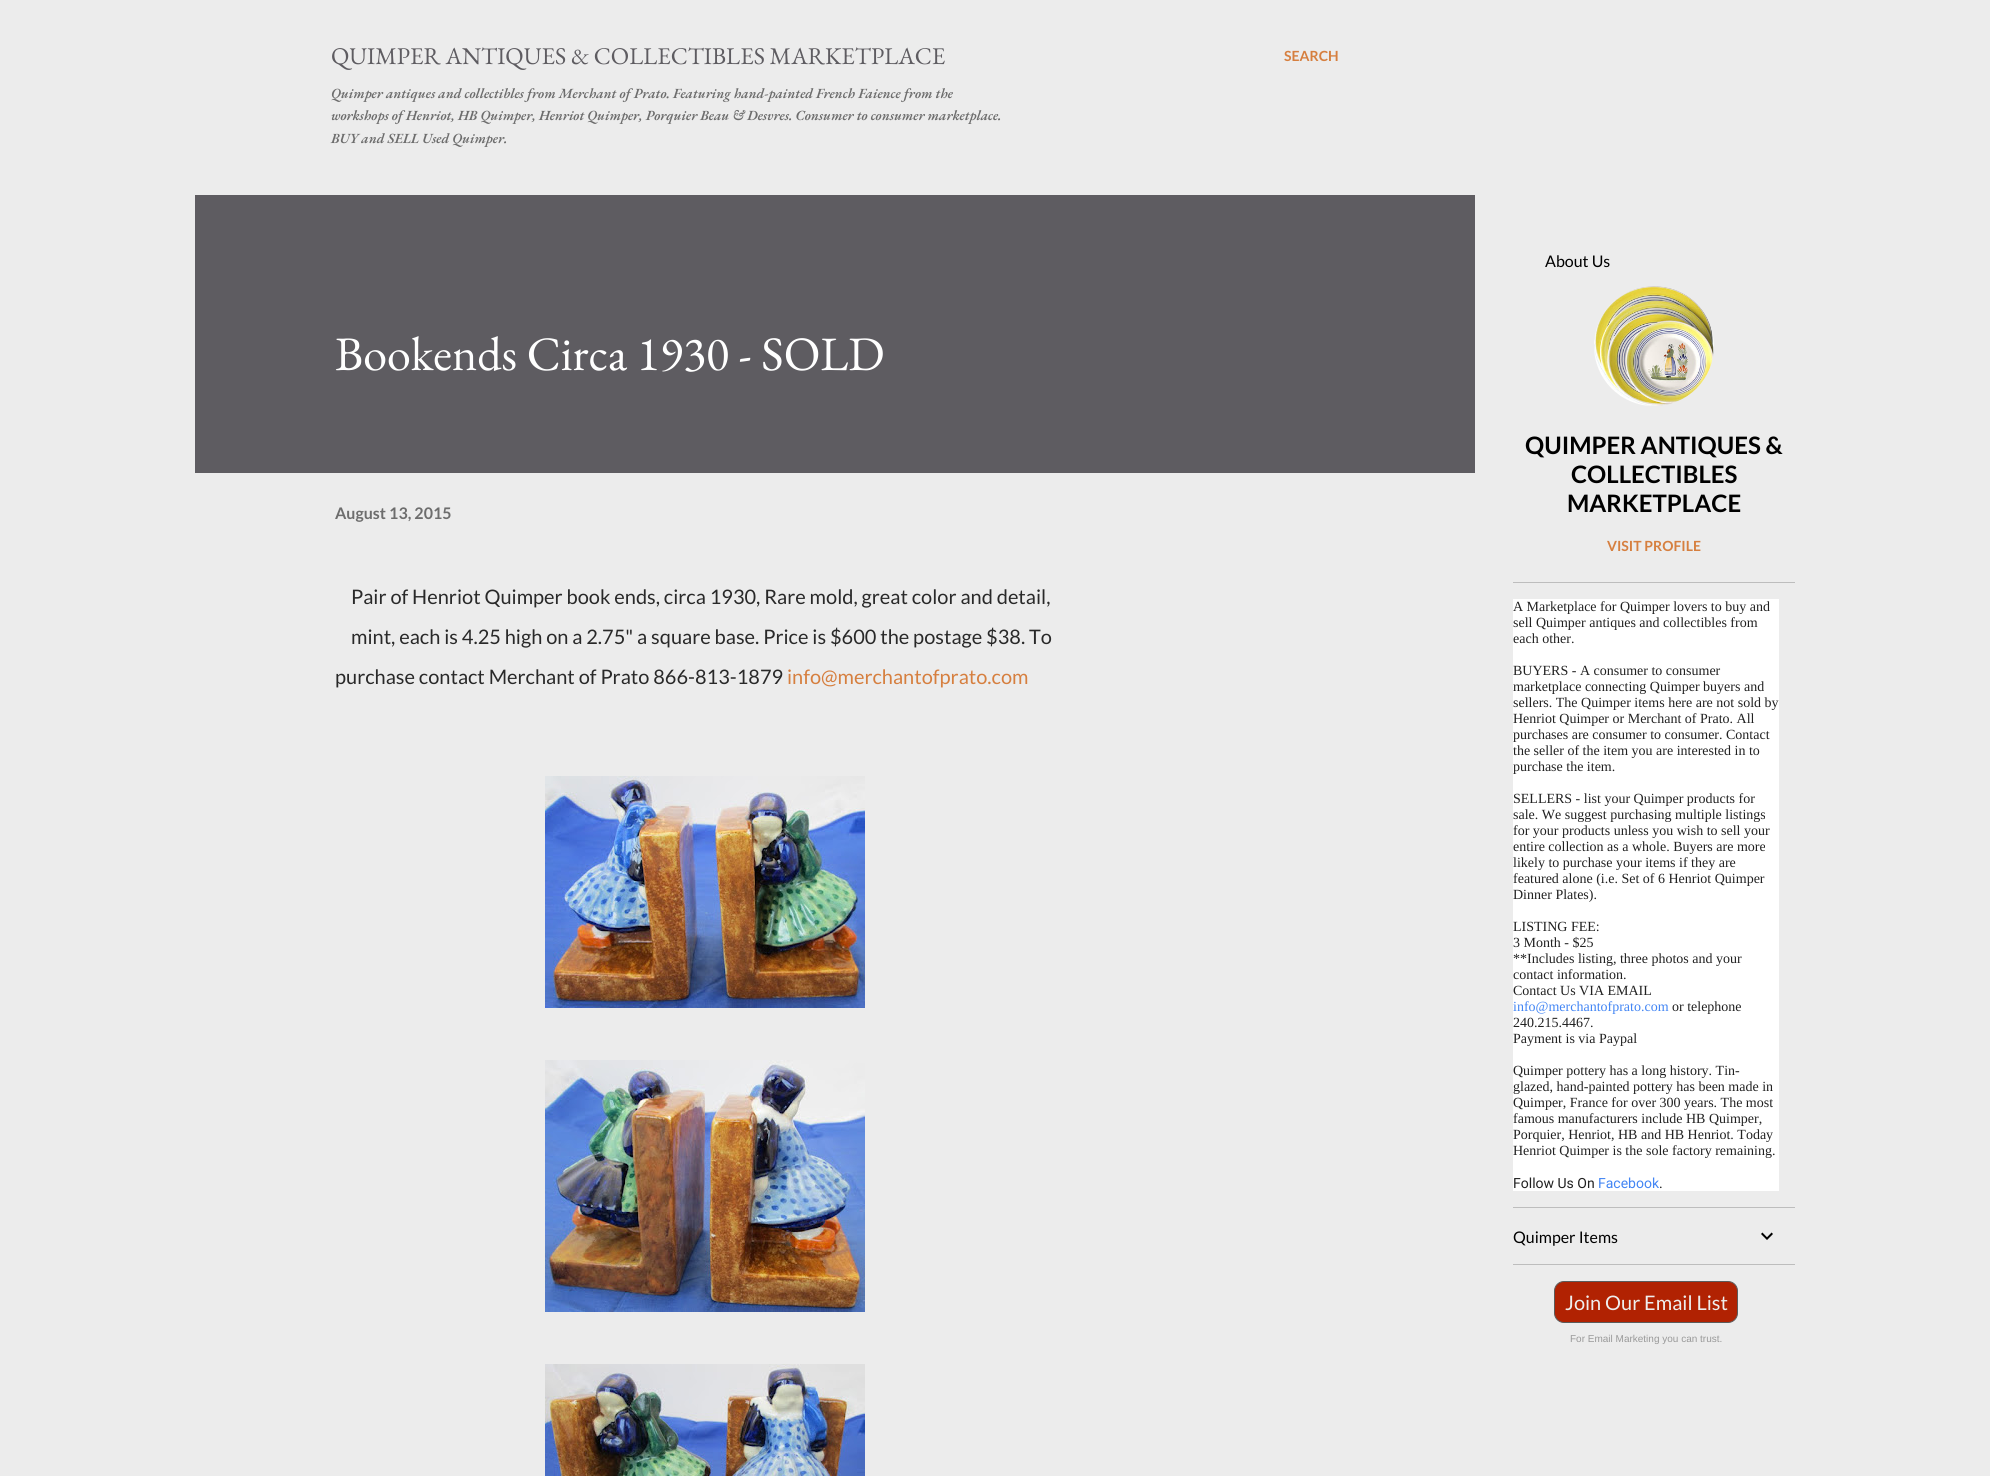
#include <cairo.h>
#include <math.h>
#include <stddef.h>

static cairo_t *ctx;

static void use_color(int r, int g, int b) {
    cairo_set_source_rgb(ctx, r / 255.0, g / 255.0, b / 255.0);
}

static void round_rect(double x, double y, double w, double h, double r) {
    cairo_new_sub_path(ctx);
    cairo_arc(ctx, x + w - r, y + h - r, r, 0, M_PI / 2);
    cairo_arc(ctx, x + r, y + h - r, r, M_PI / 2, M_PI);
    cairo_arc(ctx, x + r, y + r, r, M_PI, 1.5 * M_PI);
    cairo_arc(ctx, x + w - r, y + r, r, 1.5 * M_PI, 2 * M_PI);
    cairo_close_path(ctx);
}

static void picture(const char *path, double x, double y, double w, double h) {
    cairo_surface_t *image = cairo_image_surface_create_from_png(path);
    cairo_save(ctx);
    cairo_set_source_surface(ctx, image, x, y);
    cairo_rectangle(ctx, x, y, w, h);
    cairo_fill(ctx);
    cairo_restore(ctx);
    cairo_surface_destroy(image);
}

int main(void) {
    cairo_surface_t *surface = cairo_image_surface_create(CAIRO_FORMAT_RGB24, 1990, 1476);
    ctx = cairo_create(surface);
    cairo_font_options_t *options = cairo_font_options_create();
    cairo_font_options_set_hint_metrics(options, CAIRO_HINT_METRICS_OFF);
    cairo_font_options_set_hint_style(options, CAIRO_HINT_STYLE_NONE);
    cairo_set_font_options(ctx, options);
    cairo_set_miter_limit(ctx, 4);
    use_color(236, 236, 236);
    cairo_paint(ctx);
    cairo_select_font_face(ctx, "EB Garamond", CAIRO_FONT_SLANT_NORMAL, CAIRO_FONT_WEIGHT_NORMAL);
    cairo_set_font_size(ctx, 24);
    use_color(94, 92, 97);
    cairo_move_to(ctx, 331, 64);
    cairo_show_text(ctx, "QUIMPER ANTIQUES & COLLECTIBLES MARKETPLACE");
    cairo_select_font_face(ctx, "EB Garamond SemiBold", CAIRO_FONT_SLANT_ITALIC, CAIRO_FONT_WEIGHT_NORMAL);
    cairo_set_font_size(ctx, 14);
    use_color(109, 109, 109);
    cairo_move_to(ctx, 331, 98);
    cairo_show_text(ctx, "Quimper antiques and collectibles from Merchant of Prato. Featuring hand-painted French Faience from the");
    cairo_move_to(ctx, 331, 120);
    cairo_show_text(ctx, "workshops of Henriot, HB Quimper, Henriot Quimper, Porquier Beau & Desvres. Consumer to consumer marketplace.");
    cairo_move_to(ctx, 331, 143);
    cairo_show_text(ctx, "BUY and SELL Used Quimper.");
    cairo_select_font_face(ctx, "Lato", CAIRO_FONT_SLANT_NORMAL, CAIRO_FONT_WEIGHT_BOLD);
    use_color(214, 127, 63);
    cairo_move_to(ctx, 1284, 61);
    cairo_show_text(ctx, "SEARCH");
    use_color(94, 92, 97);
    cairo_rectangle(ctx, 195, 195, 1280, 278);
    cairo_fill(ctx);
    cairo_select_font_face(ctx, "EB Garamond", CAIRO_FONT_SLANT_NORMAL, CAIRO_FONT_WEIGHT_NORMAL);
    cairo_set_font_size(ctx, 48);
    use_color(255, 255, 255);
    cairo_move_to(ctx, 335, 370);
    cairo_show_text(ctx, "Bookends Circa 1930 - SOLD");
    cairo_select_font_face(ctx, "Lato", CAIRO_FONT_SLANT_NORMAL, CAIRO_FONT_WEIGHT_BOLD);
    cairo_set_font_size(ctx, 16);
    use_color(109, 109, 109);
    cairo_move_to(ctx, 335, 519);
    cairo_show_text(ctx, "August 13, 2015");
    cairo_select_font_face(ctx, "Lato", CAIRO_FONT_SLANT_NORMAL, CAIRO_FONT_WEIGHT_NORMAL);
    cairo_set_font_size(ctx, 20);
    use_color(41, 41, 41);
    cairo_move_to(ctx, 351, 604);
    cairo_show_text(ctx, "Pair of Henriot Quimper book ends, circa 1930, Rare mold, great color and detail,");
    cairo_move_to(ctx, 351, 644);
    cairo_show_text(ctx, "mint, each is 4.25 high on a 2.75\" a square base. Price is $600 the postage $38. To");
    cairo_move_to(ctx, 335, 684);
    cairo_show_text(ctx, "purchase contact Merchant of Prato 866-813-1879");
    use_color(214, 127, 63);
    cairo_move_to(ctx, 787, 684);
    cairo_show_text(ctx, "info@merchantofprato.com");
    picture("img1.png", 545, 776, 320, 232);
    picture("img2.png", 545, 1060, 320, 252);
    picture("img3.png", 545, 1364, 320, 112);
    cairo_set_font_size(ctx, 16);
    use_color(0, 0, 0);
    cairo_move_to(ctx, 1545, 267);
    cairo_show_text(ctx, "About Us");
    picture("img4.png", 1594, 286, 120, 120);
    cairo_select_font_face(ctx, "Lato", CAIRO_FONT_SLANT_NORMAL, CAIRO_FONT_WEIGHT_BOLD);
    cairo_set_font_size(ctx, 24);
    cairo_move_to(ctx, 1525, 454);
    cairo_show_text(ctx, "QUIMPER ANTIQUES &");
    cairo_move_to(ctx, 1571, 483);
    cairo_show_text(ctx, "COLLECTIBLES");
    cairo_move_to(ctx, 1567, 512);
    cairo_show_text(ctx, "MARKETPLACE");
    cairo_set_font_size(ctx, 14);
    use_color(214, 127, 63);
    cairo_move_to(ctx, 1607, 551);
    cairo_show_text(ctx, "VISIT PROFILE");
    use_color(189, 189, 189);
    cairo_rectangle(ctx, 1513, 582, 282, 1);
    cairo_fill(ctx);
    use_color(255, 255, 255);
    cairo_rectangle(ctx, 1513, 599, 266, 592);
    cairo_fill(ctx);
    cairo_select_font_face(ctx, "Liberation Serif", CAIRO_FONT_SLANT_NORMAL, CAIRO_FONT_WEIGHT_NORMAL);
    use_color(33, 33, 33);
    cairo_move_to(ctx, 1513, 611);
    cairo_show_text(ctx, "A Marketplace for Quimper lovers to buy and");
    cairo_move_to(ctx, 1513, 627);
    cairo_show_text(ctx, "sell Quimper antiques and collectibles from");
    cairo_move_to(ctx, 1513, 643);
    cairo_show_text(ctx, "each other.");
    cairo_move_to(ctx, 1513, 675);
    cairo_show_text(ctx, "BUYERS - A consumer to consumer");
    cairo_move_to(ctx, 1513, 691);
    cairo_show_text(ctx, "marketplace connecting Quimper buyers and");
    cairo_move_to(ctx, 1513, 707);
    cairo_show_text(ctx, "sellers. The Quimper items here are not sold by");
    cairo_move_to(ctx, 1513, 723);
    cairo_show_text(ctx, "Henriot Quimper or Merchant of Prato. All");
    cairo_move_to(ctx, 1513, 739);
    cairo_show_text(ctx, "purchases are consumer to consumer. Contact");
    cairo_move_to(ctx, 1513, 755);
    cairo_show_text(ctx, "the seller of the item you are interested in to");
    cairo_move_to(ctx, 1513, 771);
    cairo_show_text(ctx, "purchase the item.");
    cairo_move_to(ctx, 1513, 803);
    cairo_show_text(ctx, "SELLERS - list your Quimper products for");
    cairo_move_to(ctx, 1513, 819);
    cairo_show_text(ctx, "sale. We suggest purchasing multiple listings");
    cairo_move_to(ctx, 1513, 835);
    cairo_show_text(ctx, "for your products unless you wish to sell your");
    cairo_move_to(ctx, 1513, 851);
    cairo_show_text(ctx, "entire collection as a whole. Buyers are more");
    cairo_move_to(ctx, 1513, 867);
    cairo_show_text(ctx, "likely to purchase your items if they are");
    cairo_move_to(ctx, 1513, 883);
    cairo_show_text(ctx, "featured alone (i.e. Set of 6 Henriot Quimper");
    cairo_move_to(ctx, 1513, 899);
    cairo_show_text(ctx, "Dinner Plates).");
    cairo_move_to(ctx, 1513, 931);
    cairo_show_text(ctx, "LISTING FEE:");
    cairo_move_to(ctx, 1513, 947);
    cairo_show_text(ctx, "3 Month - $25");
    cairo_move_to(ctx, 1513, 963);
    cairo_show_text(ctx, "**Includes listing, three photos and your");
    cairo_move_to(ctx, 1513, 979);
    cairo_show_text(ctx, "contact information.");
    cairo_move_to(ctx, 1513, 995);
    cairo_show_text(ctx, "Contact Us VIA EMAIL");
    use_color(66, 133, 244);
    cairo_move_to(ctx, 1513, 1011);
    cairo_show_text(ctx, "info@merchantofprato.com");
    use_color(33, 33, 33);
    cairo_move_to(ctx, 1672, 1011);
    cairo_show_text(ctx, "or telephone");
    cairo_move_to(ctx, 1513, 1027);
    cairo_show_text(ctx, "240.215.4467.");
    cairo_move_to(ctx, 1513, 1043);
    cairo_show_text(ctx, "Payment is via Paypal");
    cairo_move_to(ctx, 1513, 1075);
    cairo_show_text(ctx, "Quimper pottery has a long history. Tin-");
    cairo_move_to(ctx, 1513, 1091);
    cairo_show_text(ctx, "glazed, hand-painted pottery has been made in");
    cairo_move_to(ctx, 1513, 1107);
    cairo_show_text(ctx, "Quimper, France for over 300 years. The most");
    cairo_move_to(ctx, 1513, 1123);
    cairo_show_text(ctx, "famous manufacturers include HB Quimper,");
    cairo_move_to(ctx, 1513, 1139);
    cairo_show_text(ctx, "Porquier, Henriot, HB and HB Henriot. Today");
    cairo_move_to(ctx, 1513, 1155);
    cairo_show_text(ctx, "Henriot Quimper is the sole factory remaining.");
    cairo_select_font_face(ctx, "Roboto", CAIRO_FONT_SLANT_NORMAL, CAIRO_FONT_WEIGHT_NORMAL);
    cairo_move_to(ctx, 1513, 1188);
    cairo_show_text(ctx, "Follow Us On");
    use_color(66, 133, 244);
    cairo_move_to(ctx, 1598, 1188);
    cairo_show_text(ctx, "Facebook");
    use_color(33, 33, 33);
    cairo_move_to(ctx, 1659, 1188);
    cairo_show_text(ctx, ".");
    use_color(189, 189, 189);
    cairo_rectangle(ctx, 1513, 1207, 282, 1);
    cairo_fill(ctx);
    cairo_select_font_face(ctx, "Lato", CAIRO_FONT_SLANT_NORMAL, CAIRO_FONT_WEIGHT_NORMAL);
    cairo_set_font_size(ctx, 16);
    use_color(0, 0, 0);
    cairo_move_to(ctx, 1513, 1243);
    cairo_show_text(ctx, "Quimper Items");
    picture("img5.png", 1761, 1232, 12, 8);
    use_color(189, 189, 189);
    cairo_rectangle(ctx, 1513, 1264, 282, 1);
    cairo_fill(ctx);
    use_color(177, 34, 2);
    round_rect(1554.5, 1281.5, 183, 41, 9.5);
    cairo_fill_preserve(ctx);
    use_color(91, 91, 91);
    cairo_set_line_width(ctx, 1);
    cairo_stroke(ctx);
    cairo_set_font_size(ctx, 20);
    use_color(238, 238, 238);
    cairo_move_to(ctx, 1565, 1310);
    cairo_show_text(ctx, "Join Our Email List");
    cairo_select_font_face(ctx, "Liberation Sans", CAIRO_FONT_SLANT_NORMAL, CAIRO_FONT_WEIGHT_NORMAL);
    cairo_set_font_size(ctx, 10);
    use_color(153, 153, 153);
    cairo_move_to(ctx, 1570, 1342);
    cairo_show_text(ctx, "For Email Marketing you can trust.");
    cairo_surface_write_to_png(surface, "result.png");
    cairo_font_options_destroy(options);
    cairo_destroy(ctx);
    cairo_surface_destroy(surface);
    return 0;
}
